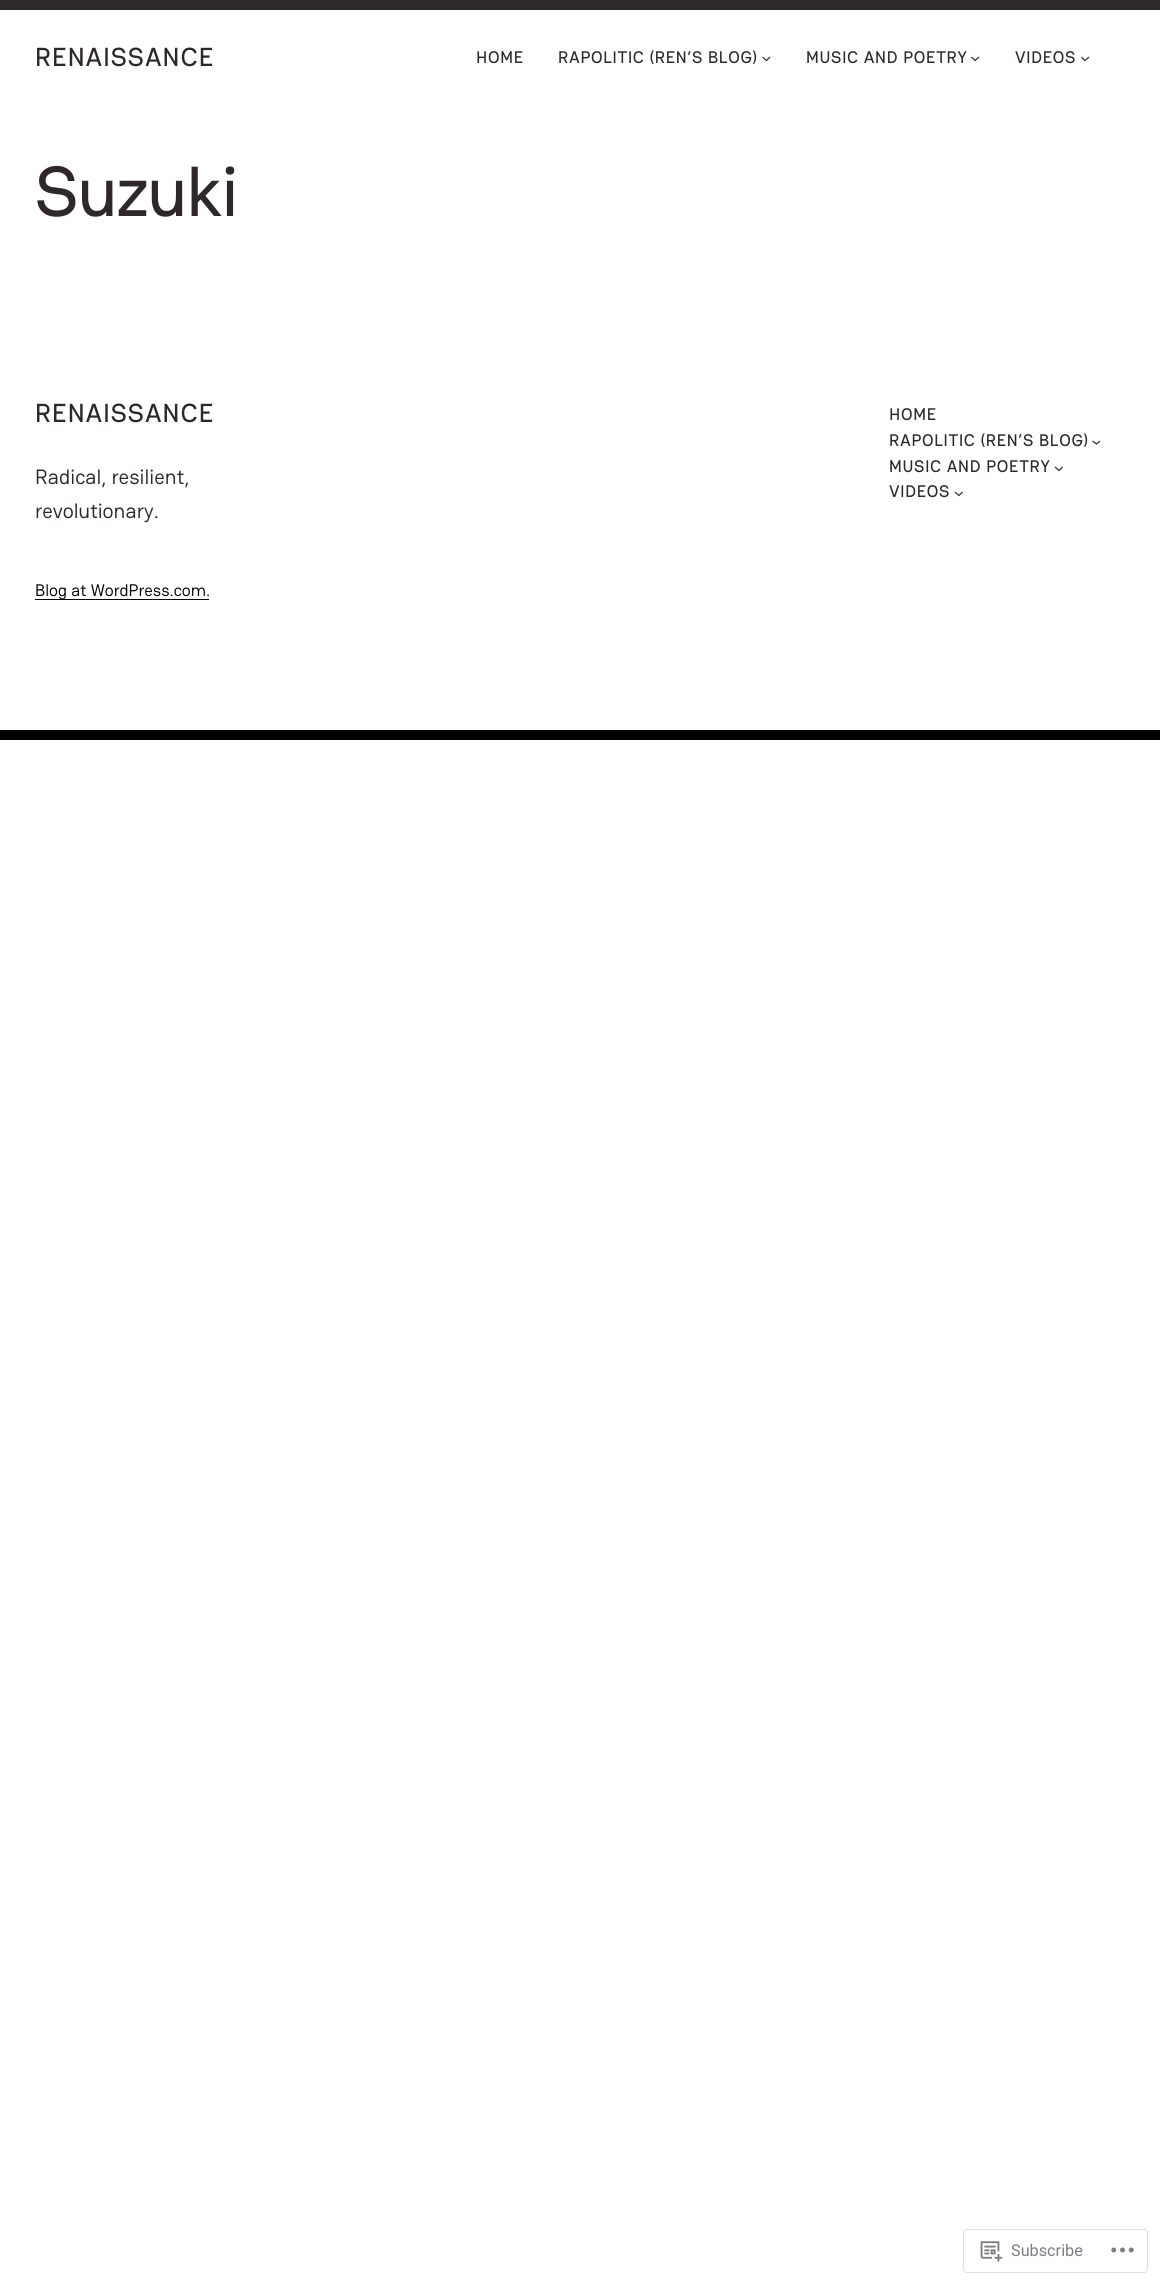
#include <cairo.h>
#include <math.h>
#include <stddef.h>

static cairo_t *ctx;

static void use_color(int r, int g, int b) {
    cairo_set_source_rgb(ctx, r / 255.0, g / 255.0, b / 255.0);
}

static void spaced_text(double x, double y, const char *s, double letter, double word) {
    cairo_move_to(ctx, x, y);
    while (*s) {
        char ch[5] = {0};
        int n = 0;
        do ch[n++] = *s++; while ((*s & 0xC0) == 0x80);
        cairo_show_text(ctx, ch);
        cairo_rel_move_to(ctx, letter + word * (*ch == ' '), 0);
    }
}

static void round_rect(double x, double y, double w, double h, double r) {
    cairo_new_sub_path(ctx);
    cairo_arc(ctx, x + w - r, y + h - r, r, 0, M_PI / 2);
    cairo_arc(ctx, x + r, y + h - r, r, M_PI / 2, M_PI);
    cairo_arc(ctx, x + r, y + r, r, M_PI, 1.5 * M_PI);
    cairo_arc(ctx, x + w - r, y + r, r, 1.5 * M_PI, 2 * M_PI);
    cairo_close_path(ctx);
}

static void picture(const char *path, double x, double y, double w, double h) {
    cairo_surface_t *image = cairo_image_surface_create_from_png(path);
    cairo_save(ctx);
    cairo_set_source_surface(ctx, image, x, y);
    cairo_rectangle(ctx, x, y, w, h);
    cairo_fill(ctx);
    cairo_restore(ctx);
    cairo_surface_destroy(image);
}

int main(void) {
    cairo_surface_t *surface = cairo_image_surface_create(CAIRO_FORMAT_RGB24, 1160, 2284);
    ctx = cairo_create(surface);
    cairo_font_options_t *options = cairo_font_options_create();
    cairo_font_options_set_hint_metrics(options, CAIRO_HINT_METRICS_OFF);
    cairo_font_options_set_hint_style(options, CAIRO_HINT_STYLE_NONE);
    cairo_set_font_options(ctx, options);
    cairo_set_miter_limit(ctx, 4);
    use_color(255, 255, 255);
    cairo_paint(ctx);
    use_color(47, 40, 40);
    cairo_rectangle(ctx, 0, 0, 1160, 10);
    cairo_fill(ctx);
    cairo_select_font_face(ctx, "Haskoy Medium", CAIRO_FONT_SLANT_NORMAL, CAIRO_FONT_WEIGHT_NORMAL);
    cairo_set_font_size(ctx, 26);
    spaced_text(35, 66, "RENAISSANCE", 1, 0);
    cairo_set_font_size(ctx, 16.75);
    spaced_text(476, 63, "HOME", 0.7, 0);
    spaced_text(558, 63, "RAPOLITIC (REN’S BLOG)", 0.7, 0);
    cairo_new_path(ctx);
    cairo_move_to(ctx, 762.5, 57);
    cairo_line_to(ctx, 766.5, 60.5);
    cairo_line_to(ctx, 770, 57);
    cairo_set_line_width(ctx, 1.2);
    cairo_stroke(ctx);
    spaced_text(806, 63, "MUSIC AND POETRY", 0.7, 0);
    cairo_new_path(ctx);
    cairo_move_to(ctx, 971.5, 57);
    cairo_line_to(ctx, 975, 60.5);
    cairo_line_to(ctx, 979, 57);
    cairo_stroke(ctx);
    spaced_text(1015, 63, "VIDEOS", 0.7, 0);
    cairo_new_path(ctx);
    cairo_move_to(ctx, 1081.5, 57);
    cairo_line_to(ctx, 1085, 60.5);
    cairo_line_to(ctx, 1089, 57);
    cairo_stroke(ctx);
    cairo_set_font_size(ctx, 70.5);
    spaced_text(35, 216, "Suzuki", -0.75, 0);
    use_color(0, 0, 0);
    cairo_rectangle(ctx, 0, 730, 1160, 10);
    cairo_fill(ctx);
    cairo_set_font_size(ctx, 26);
    use_color(47, 40, 40);
    spaced_text(35, 422, "RENAISSANCE", 1, 0);
    cairo_select_font_face(ctx, "Haskoy", CAIRO_FONT_SLANT_NORMAL, CAIRO_FONT_WEIGHT_NORMAL);
    cairo_set_font_size(ctx, 20.75);
    cairo_move_to(ctx, 35, 484);
    cairo_show_text(ctx, "Radical, resilient,");
    cairo_move_to(ctx, 35, 518);
    cairo_show_text(ctx, "revolutionary.");
    cairo_select_font_face(ctx, "Haskoy Medium", CAIRO_FONT_SLANT_NORMAL, CAIRO_FONT_WEIGHT_NORMAL);
    cairo_set_font_size(ctx, 16.75);
    spaced_text(889, 420, "HOME", 0.7, 0);
    cairo_new_path(ctx);
    cairo_move_to(ctx, 1092.5, 441);
    cairo_line_to(ctx, 1096.5, 444);
    cairo_line_to(ctx, 1100, 441);
    cairo_move_to(ctx, 1055, 467);
    cairo_line_to(ctx, 1059, 470.5);
    cairo_line_to(ctx, 1062.5, 467);
    cairo_stroke(ctx);
    spaced_text(889, 446, "RAPOLITIC (REN’S BLOG)", 0.7, 0);
    spaced_text(889, 472, "MUSIC AND POETRY", 0.7, 0);
    spaced_text(889, 497, "VIDEOS", 0.7, 0);
    cairo_new_path(ctx);
    cairo_move_to(ctx, 955, 492);
    cairo_line_to(ctx, 959, 495.5);
    cairo_line_to(ctx, 962.5, 492);
    cairo_stroke(ctx);
    use_color(0, 0, 0);
    cairo_rectangle(ctx, 35, 599, 174, 1);
    cairo_fill(ctx);
    cairo_select_font_face(ctx, "Haskoy", CAIRO_FONT_SLANT_NORMAL, CAIRO_FONT_WEIGHT_NORMAL);
    cairo_move_to(ctx, 35, 596);
    cairo_show_text(ctx, "Blog at WordPress.com.");
    round_rect(963.5, 2229.5, 184, 43, 3.5);
    use_color(221, 221, 223);
    cairo_set_line_width(ctx, 1);
    cairo_stroke(ctx);
    picture("img1.png", 980, 2241, 23, 21);
    cairo_select_font_face(ctx, "Roboto", CAIRO_FONT_SLANT_NORMAL, CAIRO_FONT_WEIGHT_NORMAL);
    cairo_set_font_size(ctx, 16.25);
    use_color(123, 127, 133);
    cairo_move_to(ctx, 1011, 2256);
    cairo_show_text(ctx, "Subscribe");
    picture("img2.png", 1111, 2247, 23, 6);
    cairo_surface_write_to_png(surface, "result.png");
    cairo_font_options_destroy(options);
    cairo_destroy(ctx);
    cairo_surface_destroy(surface);
    return 0;
}
